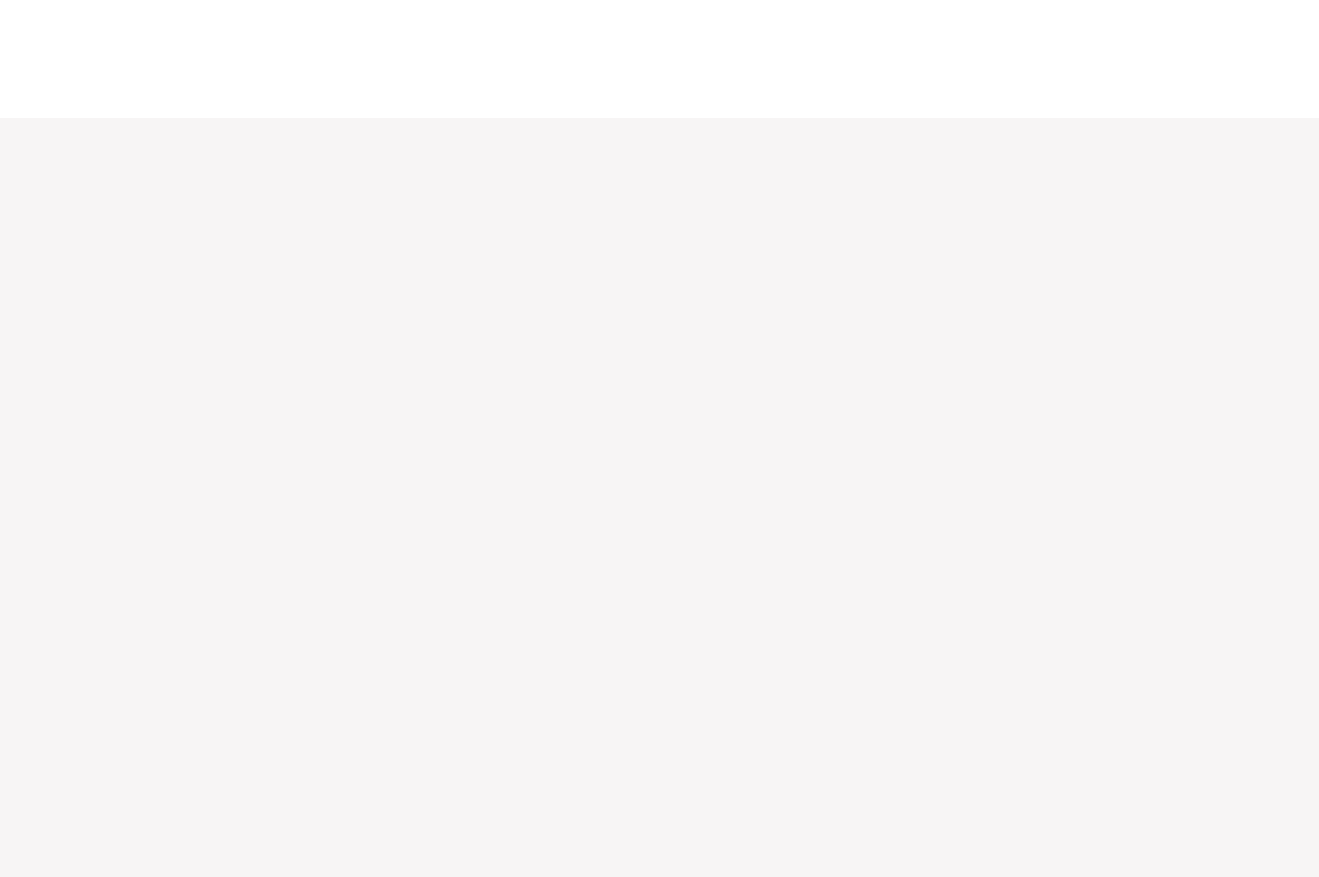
#include <cairo.h>
#include <math.h>
#include <stddef.h>

static cairo_t *ctx;

static void use_color(int r, int g, int b) {
    cairo_set_source_rgb(ctx, r / 255.0, g / 255.0, b / 255.0);
}

int main(void) {
    cairo_surface_t *surface = cairo_image_surface_create(CAIRO_FORMAT_RGB24, 1319, 877);
    ctx = cairo_create(surface);
    cairo_font_options_t *options = cairo_font_options_create();
    cairo_font_options_set_hint_metrics(options, CAIRO_HINT_METRICS_OFF);
    cairo_font_options_set_hint_style(options, CAIRO_HINT_STYLE_NONE);
    cairo_set_font_options(ctx, options);
    cairo_set_miter_limit(ctx, 4);
    use_color(255, 255, 255);
    cairo_paint(ctx);
    use_color(247, 245, 245);
    cairo_rectangle(ctx, 0, 118, 1319, 759);
    cairo_fill(ctx);
    cairo_surface_write_to_png(surface, "result.png");
    cairo_font_options_destroy(options);
    cairo_destroy(ctx);
    cairo_surface_destroy(surface);
    return 0;
}
